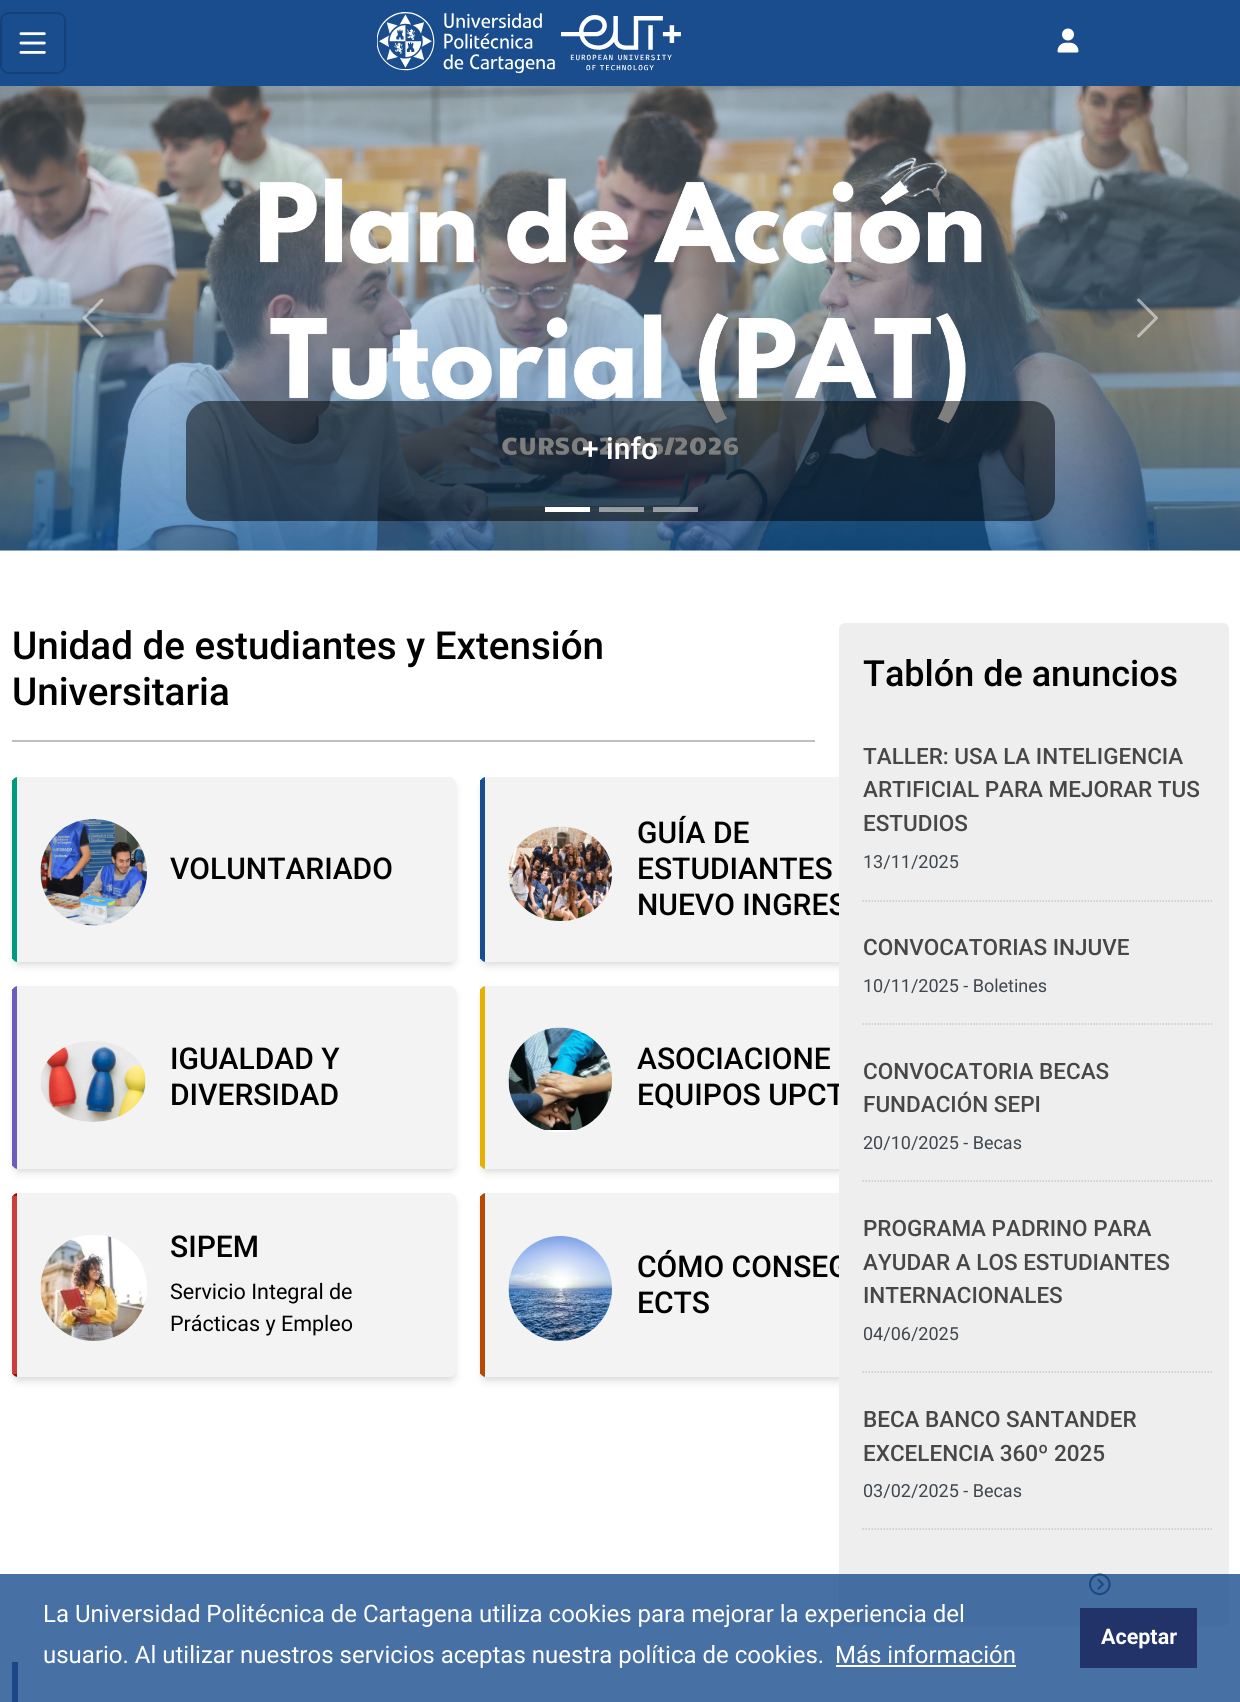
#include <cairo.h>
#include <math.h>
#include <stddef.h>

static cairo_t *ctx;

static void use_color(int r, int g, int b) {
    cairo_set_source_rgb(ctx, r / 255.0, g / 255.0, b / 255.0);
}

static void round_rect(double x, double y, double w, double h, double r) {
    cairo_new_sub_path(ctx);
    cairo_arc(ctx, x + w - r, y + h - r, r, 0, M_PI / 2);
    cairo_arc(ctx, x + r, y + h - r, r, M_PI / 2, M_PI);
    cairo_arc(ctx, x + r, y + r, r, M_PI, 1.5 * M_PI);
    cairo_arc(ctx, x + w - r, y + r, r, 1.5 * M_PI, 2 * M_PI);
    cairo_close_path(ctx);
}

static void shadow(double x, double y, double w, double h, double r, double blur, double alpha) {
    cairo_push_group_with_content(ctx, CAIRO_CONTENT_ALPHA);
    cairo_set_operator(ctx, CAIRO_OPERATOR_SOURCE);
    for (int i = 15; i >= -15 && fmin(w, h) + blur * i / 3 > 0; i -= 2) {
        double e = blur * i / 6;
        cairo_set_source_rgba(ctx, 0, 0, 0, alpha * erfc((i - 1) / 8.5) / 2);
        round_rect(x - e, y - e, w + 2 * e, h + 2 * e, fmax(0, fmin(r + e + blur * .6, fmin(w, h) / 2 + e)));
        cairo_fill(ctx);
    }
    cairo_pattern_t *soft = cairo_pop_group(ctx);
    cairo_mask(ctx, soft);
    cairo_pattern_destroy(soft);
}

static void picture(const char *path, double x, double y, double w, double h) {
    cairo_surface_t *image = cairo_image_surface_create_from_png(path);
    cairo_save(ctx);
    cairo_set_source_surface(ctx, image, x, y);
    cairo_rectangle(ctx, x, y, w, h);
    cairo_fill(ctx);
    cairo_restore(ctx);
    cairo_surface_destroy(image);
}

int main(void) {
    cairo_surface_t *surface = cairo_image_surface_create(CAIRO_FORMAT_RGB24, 1240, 1702);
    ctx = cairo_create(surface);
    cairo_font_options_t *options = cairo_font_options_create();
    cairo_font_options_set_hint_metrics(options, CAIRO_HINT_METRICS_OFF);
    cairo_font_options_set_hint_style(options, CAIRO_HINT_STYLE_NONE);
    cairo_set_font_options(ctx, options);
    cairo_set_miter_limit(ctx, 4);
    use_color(255, 255, 255);
    cairo_paint(ctx);
    use_color(26, 77, 141);
    cairo_rectangle(ctx, 0, 0, 1240, 86);
    cairo_fill(ctx);
    round_rect(1, 13, 64, 60, 8);
    use_color(22, 65, 120);
    cairo_stroke(ctx);
    picture("img1.png", 19, 32, 27, 22);
    picture("img2.png", 377, 12, 178, 62);
    picture("img3.png", 561, 15, 120, 56);
    picture("img4.png", 1057, 28, 22, 25);
    picture("img7.png", 0, 86, 1240, 465);
    picture("img5.png", 82, 298, 22, 40);
    picture("img6.png", 1137, 298, 21, 40);
    cairo_set_source_rgba(ctx, 0, 0, 0, 0.5);
    round_rect(186, 401, 869, 120, 24);
    cairo_fill(ctx);
    cairo_select_font_face(ctx, "Roboto Medium", CAIRO_FONT_SLANT_NORMAL, CAIRO_FONT_WEIGHT_NORMAL);
    cairo_set_font_size(ctx, 30);
    use_color(255, 255, 255);
    cairo_move_to(ctx, 582, 459);
    cairo_show_text(ctx, "+ info");
    cairo_rectangle(ctx, 545, 507, 45, 5);
    cairo_fill(ctx);
    cairo_set_source_rgba(ctx, 1, 1, 1, 0.5);
    cairo_rectangle(ctx, 599, 507, 45, 5);
    cairo_fill(ctx);
    cairo_rectangle(ctx, 653, 507, 45, 5);
    cairo_fill(ctx);
    cairo_set_font_size(ctx, 38.6);
    use_color(0, 0, 0);
    cairo_move_to(ctx, 12, 659);
    cairo_show_text(ctx, "Unidad de estudiantes y Extensión");
    cairo_move_to(ctx, 12, 705);
    cairo_show_text(ctx, "Universitaria");
    use_color(191, 191, 191);
    cairo_rectangle(ctx, 12, 740, 803, 2);
    cairo_fill(ctx);
    use_color(0, 0, 0);
    shadow(14, 782, 441, 181, 5, 3, 0.06);
    shadow(14, 785, 441, 181, 5, 4.5, 0.1);
    cairo_save(ctx);
    round_rect(12, 777, 444, 185, 6);
    cairo_clip(ctx);
    use_color(0, 154, 126);
    cairo_rectangle(ctx, 12, 777, 5, 185);
    cairo_fill(ctx);
    use_color(243, 243, 243);
    cairo_new_path(ctx);
    cairo_move_to(ctx, 17, 777);
    cairo_line_to(ctx, 450, 777);
    cairo_curve_to(ctx, 453.5, 777, 456, 779.5, 456, 783);
    cairo_line_to(ctx, 456, 956);
    cairo_curve_to(ctx, 456, 959.5, 453.5, 962, 450, 962);
    cairo_line_to(ctx, 17, 962);
    cairo_close_path(ctx);
    cairo_fill(ctx);
    cairo_restore(ctx);
    use_color(0, 154, 126);
    cairo_rectangle(ctx, 12, 780, 1, 179);
    cairo_fill(ctx);
    picture("img8.png", 40, 819, 107, 107);
    cairo_set_font_size(ctx, 30);
    use_color(0, 0, 0);
    cairo_move_to(ctx, 170, 879);
    cairo_show_text(ctx, "VOLUNTARIADO");
    use_color(0, 0, 0);
    shadow(482, 782, 429, 181, 5, 3, 0.06);
    shadow(482, 785, 429, 181, 5, 4.5, 0.1);
    cairo_save(ctx);
    round_rect(480, 777, 432, 185, 6);
    cairo_clip(ctx);
    use_color(0, 93, 176);
    cairo_rectangle(ctx, 480, 777, 5, 185);
    cairo_fill(ctx);
    cairo_restore(ctx);
    use_color(243, 243, 243);
    cairo_rectangle(ctx, 485, 777, 354, 185);
    cairo_fill(ctx);
    use_color(26, 77, 141);
    cairo_rectangle(ctx, 480, 780, 5, 179);
    cairo_fill(ctx);
    picture("img9.png", 508, 826, 104, 95);
    use_color(0, 0, 0);
    cairo_move_to(ctx, 637, 843);
    cairo_show_text(ctx, "GUÍA DE");
    cairo_move_to(ctx, 637, 879);
    cairo_show_text(ctx, "ESTUDIANTES");
    cairo_move_to(ctx, 637, 915);
    cairo_show_text(ctx, "NUEVO INGRES");
    use_color(0, 0, 0);
    shadow(14, 990, 441, 180, 5, 3, 0.06);
    shadow(14, 993, 441, 180, 5, 4.5, 0.1);
    cairo_save(ctx);
    round_rect(12, 986, 444, 183, 6);
    cairo_clip(ctx);
    use_color(108, 93, 186);
    cairo_rectangle(ctx, 12, 986, 5, 183);
    cairo_fill(ctx);
    use_color(243, 243, 243);
    cairo_new_path(ctx);
    cairo_move_to(ctx, 17, 986);
    cairo_line_to(ctx, 450, 986);
    cairo_curve_to(ctx, 453.5, 986, 456, 988.5, 456, 992);
    cairo_line_to(ctx, 456, 1163);
    cairo_curve_to(ctx, 456, 1166.5, 453.5, 1169, 450, 1169);
    cairo_line_to(ctx, 17, 1169);
    cairo_close_path(ctx);
    cairo_fill(ctx);
    cairo_restore(ctx);
    use_color(108, 93, 186);
    cairo_rectangle(ctx, 12, 989, 1, 177);
    cairo_fill(ctx);
    picture("img10.png", 41, 1041, 105, 81);
    use_color(0, 0, 0);
    cairo_move_to(ctx, 170, 1069);
    cairo_show_text(ctx, "IGUALDAD Y");
    cairo_move_to(ctx, 170, 1105);
    cairo_show_text(ctx, "DIVERSIDAD");
    use_color(0, 0, 0);
    shadow(482, 990, 429, 180, 5, 3, 0.06);
    shadow(482, 993, 429, 180, 5, 4.5, 0.1);
    cairo_save(ctx);
    round_rect(480, 986, 432, 183, 6);
    cairo_clip(ctx);
    use_color(229, 176, 0);
    cairo_rectangle(ctx, 480, 986, 5, 183);
    cairo_fill(ctx);
    cairo_restore(ctx);
    use_color(243, 243, 243);
    cairo_rectangle(ctx, 485, 986, 354, 183);
    cairo_fill(ctx);
    use_color(229, 176, 0);
    cairo_rectangle(ctx, 480, 989, 1, 177);
    cairo_fill(ctx);
    picture("img11.png", 508, 1027, 104, 105);
    use_color(0, 0, 0);
    cairo_move_to(ctx, 637, 1069);
    cairo_show_text(ctx, "ASOCIACIONE");
    cairo_move_to(ctx, 637, 1105);
    cairo_show_text(ctx, "EQUIPOS UPCT");
    use_color(0, 0, 0);
    shadow(14, 1197, 441, 182, 5, 3, 0.06);
    shadow(14, 1200, 441, 182, 5, 4.5, 0.1);
    cairo_save(ctx);
    round_rect(12, 1193, 444, 184, 6);
    cairo_clip(ctx);
    use_color(174, 0, 0);
    cairo_rectangle(ctx, 12, 1193, 5, 184);
    cairo_fill(ctx);
    use_color(243, 243, 243);
    cairo_new_path(ctx);
    cairo_move_to(ctx, 17, 1193);
    cairo_line_to(ctx, 450, 1193);
    cairo_curve_to(ctx, 453.5, 1193, 456, 1195.5, 456, 1199);
    cairo_line_to(ctx, 456, 1371);
    cairo_curve_to(ctx, 456, 1374.5, 453.5, 1377, 450, 1377);
    cairo_line_to(ctx, 17, 1377);
    cairo_close_path(ctx);
    cairo_fill(ctx);
    cairo_restore(ctx);
    use_color(204, 62, 57);
    cairo_rectangle(ctx, 12, 1196, 5, 178);
    cairo_fill(ctx);
    picture("img12.png", 40, 1235, 107, 106);
    use_color(0, 0, 0);
    cairo_move_to(ctx, 170, 1257);
    cairo_show_text(ctx, "SIPEM");
    cairo_select_font_face(ctx, "Roboto", CAIRO_FONT_SLANT_NORMAL, CAIRO_FONT_WEIGHT_NORMAL);
    cairo_set_font_size(ctx, 21.5);
    cairo_move_to(ctx, 170, 1299);
    cairo_show_text(ctx, "Servicio Integral de");
    cairo_move_to(ctx, 170, 1331);
    cairo_show_text(ctx, "Prácticas y Empleo");
    use_color(0, 0, 0);
    shadow(482, 1197, 429, 182, 5, 3, 0.06);
    shadow(482, 1200, 429, 182, 5, 4.5, 0.1);
    cairo_save(ctx);
    round_rect(480, 1193, 432, 184, 6);
    cairo_clip(ctx);
    use_color(183, 73, 0);
    cairo_rectangle(ctx, 480, 1193, 5, 184);
    cairo_fill(ctx);
    cairo_restore(ctx);
    use_color(243, 243, 243);
    cairo_rectangle(ctx, 485, 1193, 354, 184);
    cairo_fill(ctx);
    use_color(183, 73, 0);
    cairo_rectangle(ctx, 480, 1196, 1, 178);
    cairo_fill(ctx);
    picture("img13.png", 508, 1236, 104, 105);
    cairo_select_font_face(ctx, "Roboto Medium", CAIRO_FONT_SLANT_NORMAL, CAIRO_FONT_WEIGHT_NORMAL);
    cairo_set_font_size(ctx, 30);
    use_color(0, 0, 0);
    cairo_move_to(ctx, 637, 1277);
    cairo_show_text(ctx, "CÓMO CONSEG");
    cairo_move_to(ctx, 637, 1313);
    cairo_show_text(ctx, "ECTS");
    use_color(238, 238, 238);
    round_rect(839, 623, 390, 1003, 6);
    cairo_fill(ctx);
    cairo_set_font_size(ctx, 36);
    use_color(0, 0, 0);
    cairo_move_to(ctx, 863, 686);
    cairo_show_text(ctx, "Tablón de anuncios");
    cairo_set_font_size(ctx, 22.5);
    use_color(71, 71, 71);
    cairo_move_to(ctx, 863, 764);
    cairo_show_text(ctx, "TALLER: USA LA INTELIGENCIA");
    cairo_move_to(ctx, 863, 797);
    cairo_show_text(ctx, "ARTIFICIAL PARA MEJORAR TUS");
    cairo_move_to(ctx, 863, 831);
    cairo_show_text(ctx, "ESTUDIOS");
    cairo_select_font_face(ctx, "Roboto", CAIRO_FONT_SLANT_NORMAL, CAIRO_FONT_WEIGHT_NORMAL);
    cairo_set_font_size(ctx, 18);
    use_color(63, 71, 78);
    cairo_move_to(ctx, 863, 868);
    cairo_show_text(ctx, "13/11/2025");
    cairo_new_path(ctx);
    cairo_move_to(ctx, 862.5, 901);
    cairo_line_to(ctx, 1213.5, 901);
    use_color(202, 201, 201);
    cairo_set_line_width(ctx, 1.5);
    cairo_set_dash(ctx, (double[]){1.5, 1.5}, 2, 0);
    cairo_stroke(ctx);
    cairo_select_font_face(ctx, "Roboto Medium", CAIRO_FONT_SLANT_NORMAL, CAIRO_FONT_WEIGHT_NORMAL);
    cairo_set_font_size(ctx, 22.5);
    use_color(71, 71, 71);
    cairo_move_to(ctx, 863, 955);
    cairo_show_text(ctx, "CONVOCATORIAS INJUVE");
    cairo_select_font_face(ctx, "Roboto", CAIRO_FONT_SLANT_NORMAL, CAIRO_FONT_WEIGHT_NORMAL);
    cairo_set_font_size(ctx, 18);
    use_color(63, 71, 78);
    cairo_move_to(ctx, 863, 992);
    cairo_show_text(ctx, "10/11/2025 - Boletines");
    cairo_new_path(ctx);
    cairo_move_to(ctx, 862.5, 1024);
    cairo_line_to(ctx, 1213.5, 1024);
    use_color(202, 201, 201);
    cairo_stroke(ctx);
    cairo_select_font_face(ctx, "Roboto Medium", CAIRO_FONT_SLANT_NORMAL, CAIRO_FONT_WEIGHT_NORMAL);
    cairo_set_font_size(ctx, 22.5);
    use_color(71, 71, 71);
    cairo_move_to(ctx, 863, 1079);
    cairo_show_text(ctx, "CONVOCATORIA BECAS");
    cairo_move_to(ctx, 863, 1112);
    cairo_show_text(ctx, "FUNDACIÓN SEPI");
    cairo_select_font_face(ctx, "Roboto", CAIRO_FONT_SLANT_NORMAL, CAIRO_FONT_WEIGHT_NORMAL);
    cairo_set_font_size(ctx, 18);
    use_color(63, 71, 78);
    cairo_move_to(ctx, 863, 1149);
    cairo_show_text(ctx, "20/10/2025 - Becas");
    cairo_new_path(ctx);
    cairo_move_to(ctx, 862.5, 1181);
    cairo_line_to(ctx, 1213.5, 1181);
    use_color(202, 201, 201);
    cairo_stroke(ctx);
    cairo_select_font_face(ctx, "Roboto Medium", CAIRO_FONT_SLANT_NORMAL, CAIRO_FONT_WEIGHT_NORMAL);
    cairo_set_font_size(ctx, 22.5);
    use_color(71, 71, 71);
    cairo_move_to(ctx, 863, 1236);
    cairo_show_text(ctx, "PROGRAMA PADRINO PARA");
    cairo_move_to(ctx, 863, 1270);
    cairo_show_text(ctx, "AYUDAR A LOS ESTUDIANTES");
    cairo_move_to(ctx, 863, 1303);
    cairo_show_text(ctx, "INTERNACIONALES");
    cairo_select_font_face(ctx, "Roboto", CAIRO_FONT_SLANT_NORMAL, CAIRO_FONT_WEIGHT_NORMAL);
    cairo_set_font_size(ctx, 18);
    use_color(63, 71, 78);
    cairo_move_to(ctx, 863, 1340);
    cairo_show_text(ctx, "04/06/2025");
    cairo_new_path(ctx);
    cairo_move_to(ctx, 862.5, 1372);
    cairo_line_to(ctx, 1213.5, 1372);
    use_color(202, 201, 201);
    cairo_stroke(ctx);
    cairo_select_font_face(ctx, "Roboto Medium", CAIRO_FONT_SLANT_NORMAL, CAIRO_FONT_WEIGHT_NORMAL);
    cairo_set_font_size(ctx, 22.5);
    use_color(71, 71, 71);
    cairo_move_to(ctx, 863, 1427);
    cairo_show_text(ctx, "BECA BANCO SANTANDER");
    cairo_move_to(ctx, 863, 1461);
    cairo_show_text(ctx, "EXCELENCIA 360º 2025");
    cairo_select_font_face(ctx, "Roboto", CAIRO_FONT_SLANT_NORMAL, CAIRO_FONT_WEIGHT_NORMAL);
    cairo_set_font_size(ctx, 18);
    use_color(63, 71, 78);
    cairo_move_to(ctx, 863, 1497);
    cairo_show_text(ctx, "03/02/2025 - Becas");
    cairo_new_path(ctx);
    cairo_move_to(ctx, 862.5, 1529);
    cairo_line_to(ctx, 1213.5, 1529);
    use_color(202, 201, 201);
    cairo_stroke(ctx);
    picture("img14.png", 1089, 1573, 22, 23);
    use_color(34, 51, 105);
    cairo_rectangle(ctx, 12, 1662, 6, 40);
    cairo_fill(ctx);
    cairo_set_source_rgba(ctx, 0.102, 0.302, 0.553, 0.8);
    cairo_rectangle(ctx, 0, 1574, 1240, 128);
    cairo_fill(ctx);
    cairo_set_font_size(ctx, 24);
    use_color(255, 255, 255);
    cairo_move_to(ctx, 43, 1622);
    cairo_show_text(ctx, "La Universidad Politécnica de Cartagena utiliza cookies para mejorar la experiencia del");
    cairo_move_to(ctx, 43, 1663);
    cairo_show_text(ctx, "usuario. Al utilizar nuestros servicios aceptas nuestra política de cookies.");
    cairo_move_to(ctx, 835, 1663);
    cairo_show_text(ctx, "Más información");
    cairo_rectangle(ctx, 836, 1665, 180, 2);
    cairo_fill(ctx);
    use_color(34, 51, 105);
    cairo_rectangle(ctx, 1080, 1608, 117, 60);
    cairo_fill(ctx);
    cairo_select_font_face(ctx, "Roboto", CAIRO_FONT_SLANT_NORMAL, CAIRO_FONT_WEIGHT_BOLD);
    cairo_set_font_size(ctx, 21.5);
    use_color(255, 255, 255);
    cairo_move_to(ctx, 1101, 1644);
    cairo_show_text(ctx, "Aceptar");
    cairo_surface_write_to_png(surface, "result.png");
    cairo_font_options_destroy(options);
    cairo_destroy(ctx);
    cairo_surface_destroy(surface);
    return 0;
}
